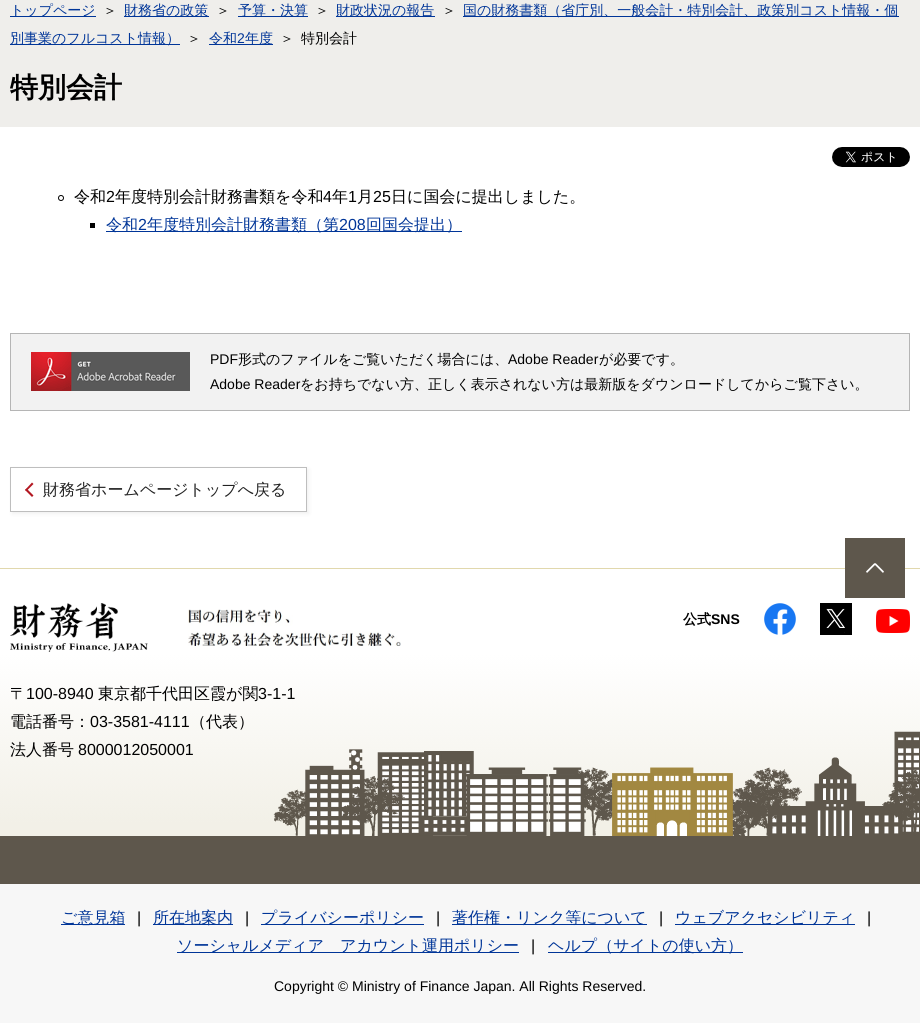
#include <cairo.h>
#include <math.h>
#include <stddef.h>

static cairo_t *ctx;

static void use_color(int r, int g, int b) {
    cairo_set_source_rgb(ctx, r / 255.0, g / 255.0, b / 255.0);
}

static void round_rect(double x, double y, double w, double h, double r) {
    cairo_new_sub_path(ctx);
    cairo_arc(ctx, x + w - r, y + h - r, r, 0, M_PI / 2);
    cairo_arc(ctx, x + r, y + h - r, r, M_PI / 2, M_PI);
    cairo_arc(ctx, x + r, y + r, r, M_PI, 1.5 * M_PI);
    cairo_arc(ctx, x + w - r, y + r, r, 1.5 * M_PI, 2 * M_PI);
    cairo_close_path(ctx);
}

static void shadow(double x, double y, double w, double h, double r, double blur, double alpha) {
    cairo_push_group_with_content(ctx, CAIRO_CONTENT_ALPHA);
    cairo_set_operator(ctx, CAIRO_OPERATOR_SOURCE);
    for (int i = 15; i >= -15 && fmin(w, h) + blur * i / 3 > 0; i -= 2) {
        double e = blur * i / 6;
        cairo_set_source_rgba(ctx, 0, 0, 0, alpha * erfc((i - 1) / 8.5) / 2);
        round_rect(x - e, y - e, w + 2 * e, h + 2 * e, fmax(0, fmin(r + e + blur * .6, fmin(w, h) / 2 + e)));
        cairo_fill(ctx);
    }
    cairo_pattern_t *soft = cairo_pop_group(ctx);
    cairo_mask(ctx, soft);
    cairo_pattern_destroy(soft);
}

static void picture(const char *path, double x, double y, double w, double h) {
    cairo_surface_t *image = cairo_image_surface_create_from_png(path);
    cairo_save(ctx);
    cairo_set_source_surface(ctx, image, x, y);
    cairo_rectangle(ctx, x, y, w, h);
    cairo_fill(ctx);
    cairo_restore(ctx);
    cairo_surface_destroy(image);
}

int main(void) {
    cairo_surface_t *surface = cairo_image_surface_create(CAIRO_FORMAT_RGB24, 920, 1023);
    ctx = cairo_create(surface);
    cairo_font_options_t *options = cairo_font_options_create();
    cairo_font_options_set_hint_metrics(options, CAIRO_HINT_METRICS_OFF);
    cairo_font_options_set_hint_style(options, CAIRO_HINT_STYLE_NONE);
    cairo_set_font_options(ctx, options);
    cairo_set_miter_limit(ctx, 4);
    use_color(255, 255, 255);
    cairo_paint(ctx);
    use_color(239, 238, 235);
    cairo_rectangle(ctx, 0, 0, 920, 127);
    cairo_fill(ctx);
    use_color(0, 53, 152);
    cairo_rectangle(ctx, 10, 16, 86, 1);
    cairo_fill(ctx);
    cairo_select_font_face(ctx, "WenQuanYi Zen Hei Medium", CAIRO_FONT_SLANT_NORMAL, CAIRO_FONT_WEIGHT_NORMAL);
    cairo_set_font_size(ctx, 14);
    cairo_move_to(ctx, 10, 15);
    cairo_show_text(ctx, "トップページ");
    use_color(0, 0, 0);
    cairo_move_to(ctx, 103, 15);
    cairo_show_text(ctx, "＞");
    use_color(0, 53, 152);
    cairo_rectangle(ctx, 124, 16, 85, 1);
    cairo_fill(ctx);
    cairo_move_to(ctx, 124, 15);
    cairo_show_text(ctx, "財務省の政策");
    use_color(0, 0, 0);
    cairo_move_to(ctx, 216, 15);
    cairo_show_text(ctx, "＞");
    use_color(0, 53, 152);
    cairo_rectangle(ctx, 238, 16, 70, 1);
    cairo_fill(ctx);
    cairo_move_to(ctx, 238, 15);
    cairo_show_text(ctx, "予算・決算");
    use_color(0, 0, 0);
    cairo_move_to(ctx, 315, 15);
    cairo_show_text(ctx, "＞");
    use_color(0, 53, 152);
    cairo_rectangle(ctx, 336, 16, 99, 1);
    cairo_fill(ctx);
    cairo_move_to(ctx, 336, 15);
    cairo_show_text(ctx, "財政状況の報告");
    use_color(0, 0, 0);
    cairo_move_to(ctx, 442, 15);
    cairo_show_text(ctx, "＞");
    use_color(0, 53, 152);
    cairo_rectangle(ctx, 463, 16, 436, 1);
    cairo_fill(ctx);
    cairo_move_to(ctx, 463, 15);
    cairo_show_text(ctx, "国の財務書類（省庁別、一般会計・特別会計、政策別コスト情報・個");
    cairo_rectangle(ctx, 10, 44, 170, 1);
    cairo_fill(ctx);
    cairo_move_to(ctx, 10, 43);
    cairo_show_text(ctx, "別事業のフルコスト情報）");
    use_color(0, 0, 0);
    cairo_move_to(ctx, 187, 43);
    cairo_show_text(ctx, "＞");
    use_color(0, 53, 152);
    cairo_rectangle(ctx, 209, 44, 64, 1);
    cairo_fill(ctx);
    cairo_move_to(ctx, 209, 43);
    cairo_show_text(ctx, "令和");
    cairo_select_font_face(ctx, "Liberation Sans", CAIRO_FONT_SLANT_NORMAL, CAIRO_FONT_WEIGHT_NORMAL);
    cairo_move_to(ctx, 237, 43);
    cairo_show_text(ctx, "2");
    cairo_select_font_face(ctx, "WenQuanYi Zen Hei Medium", CAIRO_FONT_SLANT_NORMAL, CAIRO_FONT_WEIGHT_NORMAL);
    cairo_move_to(ctx, 245, 43);
    cairo_show_text(ctx, "年度");
    use_color(0, 0, 0);
    cairo_move_to(ctx, 280, 43);
    cairo_show_text(ctx, "＞");
    cairo_move_to(ctx, 301, 43);
    cairo_show_text(ctx, "特別会計");
    cairo_select_font_face(ctx, "WenQuanYi Zen Hei", CAIRO_FONT_SLANT_NORMAL, CAIRO_FONT_WEIGHT_BOLD);
    cairo_set_font_size(ctx, 28);
    cairo_move_to(ctx, 10, 97);
    cairo_show_text(ctx, "特別会計");
    picture("img1.png", 832, 147, 78, 20);
    cairo_arc(ctx, 61, 198, 2.5, 0, 2 * M_PI);
    cairo_set_line_width(ctx, 1);
    cairo_stroke(ctx);
    cairo_select_font_face(ctx, "WenQuanYi Zen Hei Medium", CAIRO_FONT_SLANT_NORMAL, CAIRO_FONT_WEIGHT_NORMAL);
    cairo_set_font_size(ctx, 16);
    cairo_move_to(ctx, 74, 202);
    cairo_show_text(ctx, "令和");
    cairo_select_font_face(ctx, "Liberation Sans", CAIRO_FONT_SLANT_NORMAL, CAIRO_FONT_WEIGHT_NORMAL);
    cairo_move_to(ctx, 106, 202);
    cairo_show_text(ctx, "2");
    cairo_select_font_face(ctx, "WenQuanYi Zen Hei Medium", CAIRO_FONT_SLANT_NORMAL, CAIRO_FONT_WEIGHT_NORMAL);
    cairo_move_to(ctx, 115, 202);
    cairo_show_text(ctx, "年度特別会計財務書類を令和");
    cairo_select_font_face(ctx, "Liberation Sans", CAIRO_FONT_SLANT_NORMAL, CAIRO_FONT_WEIGHT_NORMAL);
    cairo_move_to(ctx, 323, 202);
    cairo_show_text(ctx, "4");
    cairo_select_font_face(ctx, "WenQuanYi Zen Hei Medium", CAIRO_FONT_SLANT_NORMAL, CAIRO_FONT_WEIGHT_NORMAL);
    cairo_move_to(ctx, 332, 202);
    cairo_show_text(ctx, "年");
    cairo_select_font_face(ctx, "Liberation Sans", CAIRO_FONT_SLANT_NORMAL, CAIRO_FONT_WEIGHT_NORMAL);
    cairo_move_to(ctx, 348, 202);
    cairo_show_text(ctx, "1");
    cairo_select_font_face(ctx, "WenQuanYi Zen Hei Medium", CAIRO_FONT_SLANT_NORMAL, CAIRO_FONT_WEIGHT_NORMAL);
    cairo_move_to(ctx, 357, 202);
    cairo_show_text(ctx, "月");
    cairo_select_font_face(ctx, "Liberation Sans", CAIRO_FONT_SLANT_NORMAL, CAIRO_FONT_WEIGHT_NORMAL);
    cairo_move_to(ctx, 373, 202);
    cairo_show_text(ctx, "25");
    cairo_select_font_face(ctx, "WenQuanYi Zen Hei Medium", CAIRO_FONT_SLANT_NORMAL, CAIRO_FONT_WEIGHT_NORMAL);
    cairo_move_to(ctx, 391, 202);
    cairo_show_text(ctx, "日に国会に提出しました。");
    cairo_rectangle(ctx, 90, 223, 5, 5);
    cairo_fill(ctx);
    use_color(0, 53, 152);
    cairo_rectangle(ctx, 106, 231, 356, 1);
    cairo_fill(ctx);
    cairo_move_to(ctx, 106, 230);
    cairo_show_text(ctx, "令和");
    cairo_select_font_face(ctx, "Liberation Sans", CAIRO_FONT_SLANT_NORMAL, CAIRO_FONT_WEIGHT_NORMAL);
    cairo_move_to(ctx, 138, 230);
    cairo_show_text(ctx, "2");
    cairo_select_font_face(ctx, "WenQuanYi Zen Hei Medium", CAIRO_FONT_SLANT_NORMAL, CAIRO_FONT_WEIGHT_NORMAL);
    cairo_move_to(ctx, 147, 230);
    cairo_show_text(ctx, "年度特別会計財務書類（第");
    cairo_select_font_face(ctx, "Liberation Sans", CAIRO_FONT_SLANT_NORMAL, CAIRO_FONT_WEIGHT_NORMAL);
    cairo_move_to(ctx, 339, 230);
    cairo_show_text(ctx, "208");
    cairo_select_font_face(ctx, "WenQuanYi Zen Hei Medium", CAIRO_FONT_SLANT_NORMAL, CAIRO_FONT_WEIGHT_NORMAL);
    cairo_move_to(ctx, 366, 230);
    cairo_show_text(ctx, "回国会提出）");
    use_color(242, 242, 242);
    cairo_rectangle(ctx, 10.5, 333.5, 899, 77);
    cairo_fill_preserve(ctx);
    use_color(181, 181, 181);
    cairo_stroke(ctx);
    picture("img2.png", 31, 352, 159, 39);
    cairo_select_font_face(ctx, "Liberation Sans", CAIRO_FONT_SLANT_NORMAL, CAIRO_FONT_WEIGHT_NORMAL);
    cairo_set_font_size(ctx, 14);
    use_color(0, 0, 0);
    cairo_move_to(ctx, 210, 364);
    cairo_show_text(ctx, "PDF");
    cairo_select_font_face(ctx, "WenQuanYi Zen Hei Medium", CAIRO_FONT_SLANT_NORMAL, CAIRO_FONT_WEIGHT_NORMAL);
    cairo_move_to(ctx, 238, 364);
    cairo_show_text(ctx, "形式のファイルをご覧いただく場合には、");
    cairo_select_font_face(ctx, "Liberation Sans", CAIRO_FONT_SLANT_NORMAL, CAIRO_FONT_WEIGHT_NORMAL);
    cairo_move_to(ctx, 508, 364);
    cairo_show_text(ctx, "Adobe Reader");
    cairo_select_font_face(ctx, "WenQuanYi Zen Hei Medium", CAIRO_FONT_SLANT_NORMAL, CAIRO_FONT_WEIGHT_NORMAL);
    cairo_move_to(ctx, 599, 364);
    cairo_show_text(ctx, "が必要です。");
    cairo_select_font_face(ctx, "Liberation Sans", CAIRO_FONT_SLANT_NORMAL, CAIRO_FONT_WEIGHT_NORMAL);
    cairo_move_to(ctx, 210, 389);
    cairo_show_text(ctx, "Adobe Reader");
    cairo_select_font_face(ctx, "WenQuanYi Zen Hei Medium", CAIRO_FONT_SLANT_NORMAL, CAIRO_FONT_WEIGHT_NORMAL);
    cairo_move_to(ctx, 300, 389);
    cairo_show_text(ctx, "をお持ちでない方、正しく表示されない方は最新版をダウンロードしてからご覧下さい。");
    cairo_save(ctx);
    cairo_set_fill_rule(ctx, CAIRO_FILL_RULE_EVEN_ODD);
    cairo_new_path(ctx);
    cairo_move_to(ctx, 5, 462);
    cairo_line_to(ctx, 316, 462);
    cairo_line_to(ctx, 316, 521);
    cairo_line_to(ctx, 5, 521);
    cairo_close_path(ctx);
    cairo_move_to(ctx, 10, 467);
    cairo_line_to(ctx, 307, 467);
    cairo_line_to(ctx, 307, 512);
    cairo_line_to(ctx, 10, 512);
    cairo_close_path(ctx);
    cairo_clip(ctx);
    use_color(0, 0, 0);
    shadow(12, 469, 297, 45, 0, 2, 0.06);
    cairo_restore(ctx);
    cairo_rectangle(ctx, 10.5, 467.5, 296, 44);
    use_color(190, 190, 190);
    cairo_stroke(ctx);
    use_color(179, 24, 34);
    cairo_new_path(ctx);
    cairo_move_to(ctx, 25, 490);
    cairo_line_to(ctx, 32, 482.5);
    cairo_line_to(ctx, 33.5, 484);
    cairo_line_to(ctx, 26.5, 491);
    cairo_close_path(ctx);
    cairo_fill(ctx);
    cairo_new_path(ctx);
    cairo_move_to(ctx, 25, 490);
    cairo_line_to(ctx, 26.5, 488.5);
    cairo_line_to(ctx, 33.5, 495.5);
    cairo_line_to(ctx, 32, 497);
    cairo_close_path(ctx);
    cairo_fill(ctx);
    cairo_set_font_size(ctx, 16);
    use_color(34, 34, 34);
    cairo_move_to(ctx, 43, 495);
    cairo_show_text(ctx, "財務省ホームページトップへ戻る");
    use_color(247, 247, 247);
    cairo_rectangle(ctx, 0, 884, 920, 139);
    cairo_fill(ctx);
    picture("img3.png", 0, 569, 920, 267);
    use_color(225, 216, 173);
    cairo_rectangle(ctx, 0, 568, 920, 1);
    cairo_fill(ctx);
    use_color(94, 87, 76);
    cairo_rectangle(ctx, 845, 538, 60, 60);
    cairo_fill(ctx);
    use_color(255, 255, 255);
    cairo_new_path(ctx);
    cairo_move_to(ctx, 866, 571.5);
    cairo_line_to(ctx, 874.5, 563);
    cairo_line_to(ctx, 875.5, 564.5);
    cairo_line_to(ctx, 867, 573);
    cairo_close_path(ctx);
    cairo_fill(ctx);
    cairo_new_path(ctx);
    cairo_move_to(ctx, 874.5, 564.5);
    cairo_line_to(ctx, 875.5, 563);
    cairo_line_to(ctx, 884, 571.5);
    cairo_line_to(ctx, 883, 573);
    cairo_close_path(ctx);
    cairo_fill(ctx);
    cairo_select_font_face(ctx, "WenQuanYi Zen Hei", CAIRO_FONT_SLANT_NORMAL, CAIRO_FONT_WEIGHT_BOLD);
    cairo_set_font_size(ctx, 14);
    use_color(0, 0, 0);
    cairo_move_to(ctx, 683, 624);
    cairo_show_text(ctx, "公式");
    cairo_select_font_face(ctx, "Liberation Sans", CAIRO_FONT_SLANT_NORMAL, CAIRO_FONT_WEIGHT_BOLD);
    cairo_move_to(ctx, 711, 624);
    cairo_show_text(ctx, "SNS");
    picture("img4.png", 764, 603, 32, 32);
    picture("img5.png", 820, 603, 32, 32);
    picture("img6.png", 876, 609, 34, 24);
    picture("img7.png", 10, 603, 108, 36);
    picture("img8.png", 10, 643, 138, 9);
    picture("img9.png", 188, 609, 213, 37);
    cairo_select_font_face(ctx, "WenQuanYi Zen Hei Medium", CAIRO_FONT_SLANT_NORMAL, CAIRO_FONT_WEIGHT_NORMAL);
    cairo_set_font_size(ctx, 16);
    cairo_move_to(ctx, 10, 699);
    cairo_show_text(ctx, "〒");
    cairo_select_font_face(ctx, "Liberation Sans", CAIRO_FONT_SLANT_NORMAL, CAIRO_FONT_WEIGHT_NORMAL);
    cairo_move_to(ctx, 26, 699);
    cairo_show_text(ctx, "100-8940");
    cairo_select_font_face(ctx, "WenQuanYi Zen Hei Medium", CAIRO_FONT_SLANT_NORMAL, CAIRO_FONT_WEIGHT_NORMAL);
    cairo_move_to(ctx, 98, 699);
    cairo_show_text(ctx, "東京都千代田区霞が関");
    cairo_select_font_face(ctx, "Liberation Sans", CAIRO_FONT_SLANT_NORMAL, CAIRO_FONT_WEIGHT_NORMAL);
    cairo_move_to(ctx, 258, 699);
    cairo_show_text(ctx, "3-1-1");
    cairo_select_font_face(ctx, "WenQuanYi Zen Hei Medium", CAIRO_FONT_SLANT_NORMAL, CAIRO_FONT_WEIGHT_NORMAL);
    cairo_move_to(ctx, 10, 727);
    cairo_show_text(ctx, "電話番号：");
    cairo_select_font_face(ctx, "Liberation Sans", CAIRO_FONT_SLANT_NORMAL, CAIRO_FONT_WEIGHT_NORMAL);
    cairo_move_to(ctx, 90, 727);
    cairo_show_text(ctx, "03-3581-4111");
    cairo_select_font_face(ctx, "WenQuanYi Zen Hei Medium", CAIRO_FONT_SLANT_NORMAL, CAIRO_FONT_WEIGHT_NORMAL);
    cairo_move_to(ctx, 190, 727);
    cairo_show_text(ctx, "（代表）");
    cairo_move_to(ctx, 10, 755);
    cairo_show_text(ctx, "法人番号");
    cairo_select_font_face(ctx, "Liberation Sans", CAIRO_FONT_SLANT_NORMAL, CAIRO_FONT_WEIGHT_NORMAL);
    cairo_move_to(ctx, 78, 755);
    cairo_show_text(ctx, "8000012050001");
    use_color(94, 87, 76);
    cairo_rectangle(ctx, 0, 836, 920, 48);
    cairo_fill(ctx);
    use_color(0, 53, 152);
    cairo_rectangle(ctx, 61, 924, 64, 1);
    cairo_fill(ctx);
    cairo_select_font_face(ctx, "WenQuanYi Zen Hei Medium", CAIRO_FONT_SLANT_NORMAL, CAIRO_FONT_WEIGHT_NORMAL);
    cairo_move_to(ctx, 61, 923);
    cairo_show_text(ctx, "ご意見箱");
    cairo_select_font_face(ctx, "Liberation Sans", CAIRO_FONT_SLANT_NORMAL, CAIRO_FONT_WEIGHT_NORMAL);
    use_color(0, 0, 0);
    cairo_move_to(ctx, 137, 923);
    cairo_show_text(ctx, "|");
    use_color(0, 53, 152);
    cairo_rectangle(ctx, 153, 924, 80, 1);
    cairo_fill(ctx);
    cairo_select_font_face(ctx, "WenQuanYi Zen Hei Medium", CAIRO_FONT_SLANT_NORMAL, CAIRO_FONT_WEIGHT_NORMAL);
    cairo_move_to(ctx, 153, 923);
    cairo_show_text(ctx, "所在地案内");
    cairo_select_font_face(ctx, "Liberation Sans", CAIRO_FONT_SLANT_NORMAL, CAIRO_FONT_WEIGHT_NORMAL);
    use_color(0, 0, 0);
    cairo_move_to(ctx, 245, 923);
    cairo_show_text(ctx, "|");
    use_color(0, 53, 152);
    cairo_rectangle(ctx, 261, 924, 163, 1);
    cairo_fill(ctx);
    cairo_select_font_face(ctx, "WenQuanYi Zen Hei Medium", CAIRO_FONT_SLANT_NORMAL, CAIRO_FONT_WEIGHT_NORMAL);
    cairo_move_to(ctx, 261, 923);
    cairo_show_text(ctx, "プライバシーポリシー");
    cairo_select_font_face(ctx, "Liberation Sans", CAIRO_FONT_SLANT_NORMAL, CAIRO_FONT_WEIGHT_NORMAL);
    use_color(0, 0, 0);
    cairo_move_to(ctx, 436, 923);
    cairo_show_text(ctx, "|");
    use_color(0, 53, 152);
    cairo_rectangle(ctx, 452, 924, 195, 1);
    cairo_fill(ctx);
    cairo_select_font_face(ctx, "WenQuanYi Zen Hei Medium", CAIRO_FONT_SLANT_NORMAL, CAIRO_FONT_WEIGHT_NORMAL);
    cairo_move_to(ctx, 452, 923);
    cairo_show_text(ctx, "著作権・リンク等について");
    cairo_select_font_face(ctx, "Liberation Sans", CAIRO_FONT_SLANT_NORMAL, CAIRO_FONT_WEIGHT_NORMAL);
    use_color(0, 0, 0);
    cairo_move_to(ctx, 659, 923);
    cairo_show_text(ctx, "|");
    use_color(0, 53, 152);
    cairo_rectangle(ctx, 675, 924, 180, 1);
    cairo_fill(ctx);
    cairo_select_font_face(ctx, "WenQuanYi Zen Hei Medium", CAIRO_FONT_SLANT_NORMAL, CAIRO_FONT_WEIGHT_NORMAL);
    cairo_move_to(ctx, 675, 923);
    cairo_show_text(ctx, "ウェブアクセシビリティ");
    cairo_select_font_face(ctx, "Liberation Sans", CAIRO_FONT_SLANT_NORMAL, CAIRO_FONT_WEIGHT_NORMAL);
    use_color(0, 0, 0);
    cairo_move_to(ctx, 867, 923);
    cairo_show_text(ctx, "|");
    use_color(0, 53, 152);
    cairo_rectangle(ctx, 177, 952, 342, 1);
    cairo_fill(ctx);
    cairo_select_font_face(ctx, "WenQuanYi Zen Hei Medium", CAIRO_FONT_SLANT_NORMAL, CAIRO_FONT_WEIGHT_NORMAL);
    cairo_move_to(ctx, 177, 951);
    cairo_show_text(ctx, "ソーシャルメディア　アカウント運用ポリシー");
    cairo_select_font_face(ctx, "Liberation Sans", CAIRO_FONT_SLANT_NORMAL, CAIRO_FONT_WEIGHT_NORMAL);
    use_color(0, 0, 0);
    cairo_move_to(ctx, 531, 951);
    cairo_show_text(ctx, "|");
    use_color(0, 53, 152);
    cairo_rectangle(ctx, 548, 952, 195, 1);
    cairo_fill(ctx);
    cairo_select_font_face(ctx, "WenQuanYi Zen Hei Medium", CAIRO_FONT_SLANT_NORMAL, CAIRO_FONT_WEIGHT_NORMAL);
    cairo_move_to(ctx, 548, 951);
    cairo_show_text(ctx, "ヘルプ（サイトの使い方）");
    cairo_select_font_face(ctx, "Liberation Sans", CAIRO_FONT_SLANT_NORMAL, CAIRO_FONT_WEIGHT_NORMAL);
    cairo_set_font_size(ctx, 14);
    use_color(0, 0, 0);
    cairo_move_to(ctx, 274, 991);
    cairo_show_text(ctx, "Copyright © Ministry of Finance Japan. All Rights Reserved.");
    cairo_surface_write_to_png(surface, "result.png");
    cairo_font_options_destroy(options);
    cairo_destroy(ctx);
    cairo_surface_destroy(surface);
    return 0;
}
